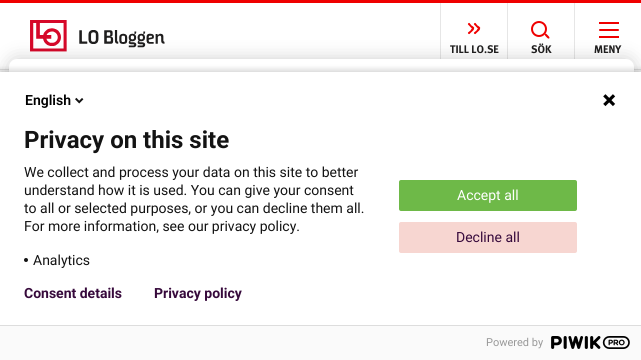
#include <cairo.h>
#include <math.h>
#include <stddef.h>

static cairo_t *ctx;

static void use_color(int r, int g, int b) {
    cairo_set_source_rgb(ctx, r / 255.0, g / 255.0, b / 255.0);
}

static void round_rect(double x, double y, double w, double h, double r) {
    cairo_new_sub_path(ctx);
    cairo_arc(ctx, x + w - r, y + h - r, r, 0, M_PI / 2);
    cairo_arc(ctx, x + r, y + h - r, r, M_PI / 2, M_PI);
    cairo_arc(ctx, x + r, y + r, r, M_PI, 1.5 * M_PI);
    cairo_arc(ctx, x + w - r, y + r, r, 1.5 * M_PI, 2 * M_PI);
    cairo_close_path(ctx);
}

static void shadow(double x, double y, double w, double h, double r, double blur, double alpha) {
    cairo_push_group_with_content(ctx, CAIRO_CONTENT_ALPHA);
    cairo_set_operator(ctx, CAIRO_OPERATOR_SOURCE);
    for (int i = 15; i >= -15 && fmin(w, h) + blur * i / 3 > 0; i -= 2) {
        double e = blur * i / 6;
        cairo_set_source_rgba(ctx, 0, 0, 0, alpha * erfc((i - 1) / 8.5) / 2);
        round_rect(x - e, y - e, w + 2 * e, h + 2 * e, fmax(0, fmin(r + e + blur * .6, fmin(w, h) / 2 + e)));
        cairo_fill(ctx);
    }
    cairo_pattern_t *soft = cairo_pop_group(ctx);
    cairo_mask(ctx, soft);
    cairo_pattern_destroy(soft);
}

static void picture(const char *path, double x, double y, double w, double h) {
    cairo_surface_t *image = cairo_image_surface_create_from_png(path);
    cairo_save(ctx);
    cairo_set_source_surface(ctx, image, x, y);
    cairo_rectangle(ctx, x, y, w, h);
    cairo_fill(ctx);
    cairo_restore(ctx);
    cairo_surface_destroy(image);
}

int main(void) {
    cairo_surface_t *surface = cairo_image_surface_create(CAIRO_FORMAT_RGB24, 641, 360);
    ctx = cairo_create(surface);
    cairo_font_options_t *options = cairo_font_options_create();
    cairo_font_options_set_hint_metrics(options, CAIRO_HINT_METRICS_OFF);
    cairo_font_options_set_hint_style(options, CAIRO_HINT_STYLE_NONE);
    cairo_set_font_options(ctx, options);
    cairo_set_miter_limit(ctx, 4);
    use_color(255, 255, 255);
    cairo_paint(ctx);
    use_color(230, 230, 230);
    cairo_rectangle(ctx, 0, 69, 641, 1);
    cairo_fill(ctx);
    picture("img1.png", 30, 20, 135, 32);
    cairo_rectangle(ctx, 440, 3, 1, 56);
    cairo_fill(ctx);
    use_color(239, 0, 0);
    cairo_new_path(ctx);
    cairo_move_to(ctx, 469.5, 23);
    cairo_line_to(ctx, 471.5, 25.5);
    cairo_curve_to(ctx, 472.5, 26, 475, 27.5, 474, 28.5);
    cairo_curve_to(ctx, 473, 30.5, 470, 26.5, 469.5, 26);
    cairo_line_to(ctx, 468, 24.5);
    cairo_curve_to(ctx, 467.5, 23.5, 469, 22.5, 469.5, 23);
    cairo_close_path(ctx);
    cairo_fill(ctx);
    cairo_new_path(ctx);
    cairo_move_to(ctx, 468, 32.5);
    cairo_line_to(ctx, 470.5, 30.5);
    cairo_curve_to(ctx, 471, 29.5, 472.5, 27, 473.5, 28);
    cairo_curve_to(ctx, 475.5, 29, 471.5, 32, 471, 32.5);
    cairo_line_to(ctx, 469.5, 34);
    cairo_curve_to(ctx, 468.5, 34.5, 467.5, 33, 468, 32.5);
    cairo_close_path(ctx);
    cairo_fill(ctx);
    cairo_new_path(ctx);
    cairo_move_to(ctx, 475.5, 23);
    cairo_line_to(ctx, 477.5, 25.5);
    cairo_curve_to(ctx, 478.5, 26, 481, 27.5, 480, 28.5);
    cairo_curve_to(ctx, 479, 30.5, 476, 26.5, 475.5, 26);
    cairo_line_to(ctx, 474, 24.5);
    cairo_curve_to(ctx, 473.5, 23.5, 475, 22.5, 475.5, 23);
    cairo_close_path(ctx);
    cairo_fill(ctx);
    cairo_new_path(ctx);
    cairo_move_to(ctx, 474, 32.5);
    cairo_line_to(ctx, 476.5, 30.5);
    cairo_curve_to(ctx, 477, 29.5, 478.5, 27, 479.5, 28);
    cairo_curve_to(ctx, 481.5, 29, 477.5, 32, 477, 32.5);
    cairo_line_to(ctx, 475.5, 34);
    cairo_curve_to(ctx, 474.5, 34.5, 473.5, 33, 474, 32.5);
    cairo_close_path(ctx);
    cairo_fill(ctx);
    use_color(230, 230, 230);
    cairo_rectangle(ctx, 507, 3, 1, 56);
    cairo_fill(ctx);
    cairo_arc(ctx, 539, 29, 7, 0, 2 * M_PI);
    use_color(239, 0, 0);
    cairo_stroke(ctx);
    cairo_new_path(ctx);
    cairo_move_to(ctx, 546.5, 34);
    cairo_line_to(ctx, 548, 35.5);
    cairo_curve_to(ctx, 548.5, 36, 549.5, 37, 549.5, 38);
    cairo_curve_to(ctx, 548.5, 40, 546, 36.5, 545.5, 36);
    cairo_curve_to(ctx, 543.5, 34, 545.5, 33, 546.5, 34);
    cairo_close_path(ctx);
    cairo_fill(ctx);
    use_color(230, 230, 230);
    cairo_rectangle(ctx, 574, 3, 1, 56);
    cairo_fill(ctx);
    use_color(239, 0, 0);
    cairo_rectangle(ctx, 599, 36, 20, 2);
    cairo_fill(ctx);
    use_color(0, 0, 0);
    shadow(9, 59, 625, 242, 8, 9, 0.2);
    use_color(255, 255, 255);
    round_rect(9, 59, 625, 242, 8);
    cairo_fill(ctx);
    use_color(239, 0, 0);
    cairo_rectangle(ctx, 0, 0, 641, 3);
    cairo_fill(ctx);
    cairo_select_font_face(ctx, "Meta", CAIRO_FONT_SLANT_NORMAL, CAIRO_FONT_WEIGHT_BOLD);
    cairo_set_font_size(ctx, 11);
    use_color(31, 30, 30);
    cairo_move_to(ctx, 450, 53);
    cairo_show_text(ctx, "TILL LO.SE");
    cairo_move_to(ctx, 531, 53);
    cairo_show_text(ctx, "SÖK");
    use_color(239, 0, 0);
    round_rect(599, 29, 20, 2, 1);
    cairo_fill(ctx);
    cairo_rectangle(ctx, 599, 22, 20, 2);
    cairo_fill(ctx);
    use_color(31, 30, 30);
    cairo_move_to(ctx, 594, 53);
    cairo_show_text(ctx, "MENY");
    use_color(0, 0, 0);
    shadow(-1, 69, 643, 290, 0, 2.5, 0.14);
    use_color(255, 255, 255);
    cairo_rectangle(ctx, 0, 72, 641, 253);
    cairo_fill(ctx);
    cairo_select_font_face(ctx, "Roboto SemiBold", CAIRO_FONT_SLANT_NORMAL, CAIRO_FONT_WEIGHT_NORMAL);
    cairo_set_font_size(ctx, 14);
    use_color(0, 0, 0);
    cairo_move_to(ctx, 25, 105);
    cairo_show_text(ctx, "English");
    picture("img2.png", 75, 97, 9, 7);
    picture("img3.png", 603, 94, 13, 13);
    cairo_select_font_face(ctx, "Roboto", CAIRO_FONT_SLANT_NORMAL, CAIRO_FONT_WEIGHT_BOLD);
    cairo_set_font_size(ctx, 24);
    use_color(19, 19, 19);
    cairo_move_to(ctx, 24, 148);
    cairo_show_text(ctx, "Privacy on this site");
    cairo_select_font_face(ctx, "Roboto", CAIRO_FONT_SLANT_NORMAL, CAIRO_FONT_WEIGHT_NORMAL);
    cairo_set_font_size(ctx, 14);
    cairo_move_to(ctx, 24, 177);
    cairo_show_text(ctx, "We collect and process your data on this site to better");
    cairo_move_to(ctx, 24, 195);
    cairo_show_text(ctx, "understand how it is used. You can give your consent");
    cairo_move_to(ctx, 24, 213);
    cairo_show_text(ctx, "to all or selected purposes, or you can decline them all.");
    cairo_move_to(ctx, 24, 231);
    cairo_show_text(ctx, "For more information, see our privacy policy.");
    cairo_new_path(ctx);
    cairo_arc(ctx, 26, 260, 2, 0, 2 * M_PI);
    cairo_fill(ctx);
    cairo_move_to(ctx, 33, 265);
    cairo_show_text(ctx, "Analytics");
    use_color(110, 185, 72);
    round_rect(399, 180, 178, 31, 2);
    cairo_fill(ctx);
    use_color(255, 255, 255);
    cairo_move_to(ctx, 457, 200);
    cairo_show_text(ctx, "Accept all");
    use_color(247, 214, 209);
    round_rect(399, 222, 178, 31, 2);
    cairo_fill(ctx);
    use_color(55, 10, 60);
    cairo_move_to(ctx, 456, 242);
    cairo_show_text(ctx, "Decline all");
    cairo_select_font_face(ctx, "Roboto", CAIRO_FONT_SLANT_NORMAL, CAIRO_FONT_WEIGHT_BOLD);
    cairo_move_to(ctx, 24, 298);
    cairo_show_text(ctx, "Consent details");
    cairo_move_to(ctx, 154, 298);
    cairo_show_text(ctx, "Privacy policy");
    use_color(250, 250, 250);
    cairo_rectangle(ctx, 0, 326, 641, 34);
    cairo_fill(ctx);
    use_color(221, 221, 221);
    cairo_rectangle(ctx, 0, 325, 641, 1);
    cairo_fill(ctx);
    cairo_select_font_face(ctx, "Roboto", CAIRO_FONT_SLANT_NORMAL, CAIRO_FONT_WEIGHT_NORMAL);
    cairo_set_font_size(ctx, 11);
    use_color(153, 153, 153);
    cairo_move_to(ctx, 486, 346);
    cairo_show_text(ctx, "Powered by");
    picture("img4.png", 551, 336, 79, 13);
    cairo_surface_write_to_png(surface, "result.png");
    cairo_font_options_destroy(options);
    cairo_destroy(ctx);
    cairo_surface_destroy(surface);
    return 0;
}
